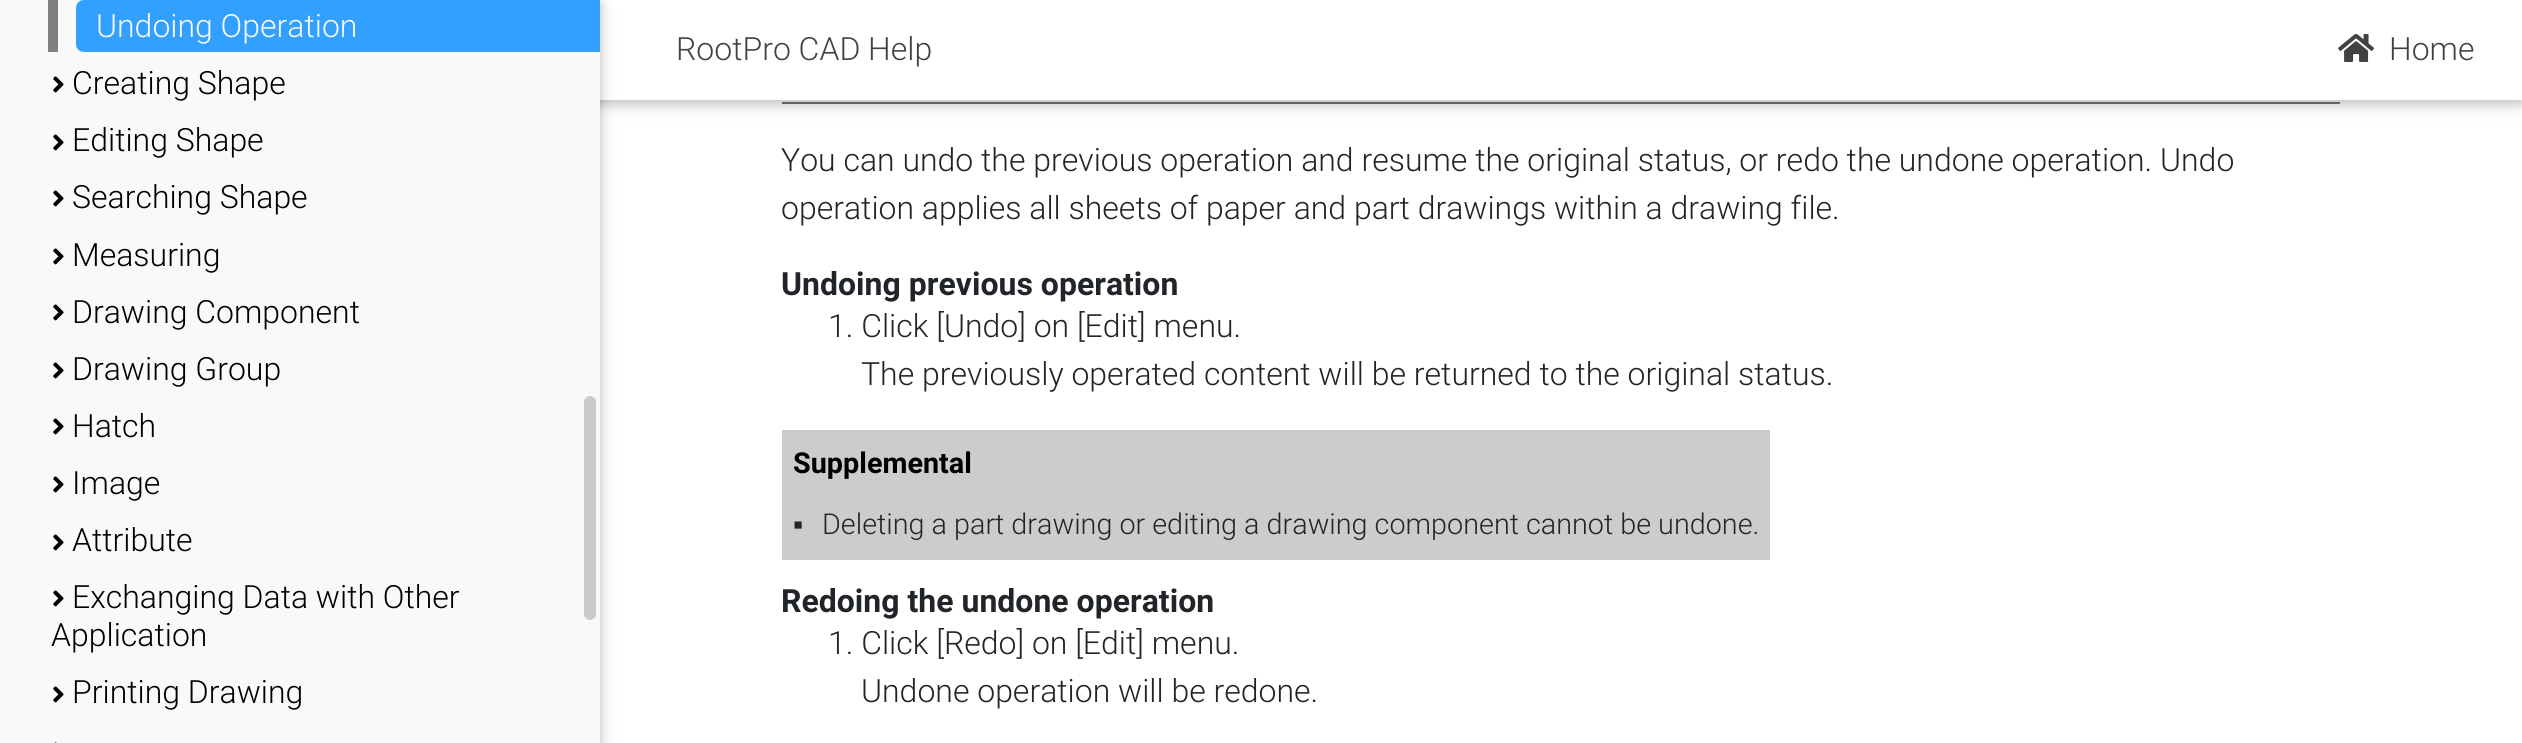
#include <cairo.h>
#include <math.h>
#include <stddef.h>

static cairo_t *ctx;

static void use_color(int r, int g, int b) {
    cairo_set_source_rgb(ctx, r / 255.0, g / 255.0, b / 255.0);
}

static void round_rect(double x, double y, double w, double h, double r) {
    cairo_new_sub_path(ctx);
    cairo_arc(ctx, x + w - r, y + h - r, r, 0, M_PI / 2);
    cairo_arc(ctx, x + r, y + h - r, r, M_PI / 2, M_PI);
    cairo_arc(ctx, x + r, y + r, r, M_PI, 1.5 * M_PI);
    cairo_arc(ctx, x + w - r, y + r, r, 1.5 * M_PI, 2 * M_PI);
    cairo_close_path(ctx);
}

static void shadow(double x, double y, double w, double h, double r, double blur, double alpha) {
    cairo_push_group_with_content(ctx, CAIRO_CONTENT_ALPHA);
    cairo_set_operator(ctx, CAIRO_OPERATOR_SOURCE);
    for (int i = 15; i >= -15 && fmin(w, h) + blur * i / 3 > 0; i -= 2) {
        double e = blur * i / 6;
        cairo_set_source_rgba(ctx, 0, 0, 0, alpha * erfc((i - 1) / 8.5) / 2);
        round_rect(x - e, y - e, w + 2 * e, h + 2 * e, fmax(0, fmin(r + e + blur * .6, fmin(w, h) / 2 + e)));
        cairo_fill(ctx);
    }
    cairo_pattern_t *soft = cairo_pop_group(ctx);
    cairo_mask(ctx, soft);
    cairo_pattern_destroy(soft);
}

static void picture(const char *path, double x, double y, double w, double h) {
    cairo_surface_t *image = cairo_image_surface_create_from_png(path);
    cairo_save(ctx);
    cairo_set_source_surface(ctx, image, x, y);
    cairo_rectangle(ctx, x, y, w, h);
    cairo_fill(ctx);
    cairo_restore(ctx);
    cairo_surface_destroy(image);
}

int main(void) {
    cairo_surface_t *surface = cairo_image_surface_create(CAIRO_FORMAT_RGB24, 2522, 743);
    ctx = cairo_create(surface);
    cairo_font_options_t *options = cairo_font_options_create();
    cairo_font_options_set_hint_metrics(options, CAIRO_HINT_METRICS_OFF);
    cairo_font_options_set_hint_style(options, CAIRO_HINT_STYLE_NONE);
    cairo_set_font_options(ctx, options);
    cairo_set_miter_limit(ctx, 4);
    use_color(255, 255, 255);
    cairo_paint(ctx);
    use_color(115, 115, 115);
    cairo_rectangle(ctx, 782, 102, 1558, 2);
    cairo_fill(ctx);
    use_color(0, 0, 0);
    shadow(0, 4, 2522, 100, 0, 10, 0.12);
    shadow(0, 4, 2522, 100, 0, 5, 0.16);
    use_color(255, 255, 255);
    cairo_rectangle(ctx, 600, 0, 1922, 100);
    cairo_fill(ctx);
    use_color(0, 0, 0);
    shadow(0, 4, 600, 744, 0, 10, 0.12);
    shadow(0, 4, 600, 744, 0, 5, 0.16);
    use_color(249, 249, 249);
    cairo_rectangle(ctx, 0, 0, 600, 743);
    cairo_fill(ctx);
    use_color(128, 128, 128);
    cairo_rectangle(ctx, 48, 0, 10, 52);
    cairo_fill(ctx);
    use_color(50, 160, 255);
    cairo_new_path(ctx);
    cairo_move_to(ctx, 84, 0);
    cairo_line_to(ctx, 600, 0);
    cairo_line_to(ctx, 600, 52);
    cairo_line_to(ctx, 84, 52);
    cairo_curve_to(ctx, 79.5, 52, 76, 48.5, 76, 44);
    cairo_line_to(ctx, 76, 8);
    cairo_curve_to(ctx, 76, 3.5, 79.5, 0, 84, 0);
    cairo_close_path(ctx);
    cairo_fill(ctx);
    cairo_select_font_face(ctx, "Roboto Light", CAIRO_FONT_SLANT_NORMAL, CAIRO_FONT_WEIGHT_NORMAL);
    cairo_set_font_size(ctx, 32);
    use_color(248, 249, 250);
    cairo_move_to(ctx, 96, 37);
    cairo_show_text(ctx, "Undoing Operation");
    picture("img1.png", 53, 76, 11, 17);
    use_color(0, 0, 0);
    cairo_move_to(ctx, 72, 94);
    cairo_show_text(ctx, "Creating Shape");
    picture("img1.png", 53, 134, 11, 17);
    cairo_move_to(ctx, 72, 151);
    cairo_show_text(ctx, "Editing Shape");
    picture("img1.png", 53, 190, 11, 17);
    cairo_move_to(ctx, 72, 208);
    cairo_show_text(ctx, "Searching Shape");
    picture("img1.png", 53, 248, 11, 17);
    cairo_move_to(ctx, 72, 266);
    cairo_show_text(ctx, "Measuring");
    picture("img1.png", 53, 304, 11, 17);
    cairo_move_to(ctx, 72, 323);
    cairo_show_text(ctx, "Drawing Component");
    picture("img1.png", 53, 362, 11, 17);
    cairo_move_to(ctx, 72, 380);
    cairo_show_text(ctx, "Drawing Group");
    picture("img1.png", 53, 418, 11, 17);
    cairo_move_to(ctx, 72, 437);
    cairo_show_text(ctx, "Hatch");
    picture("img1.png", 53, 476, 11, 17);
    cairo_move_to(ctx, 72, 494);
    cairo_show_text(ctx, "Image");
    picture("img1.png", 53, 534, 11, 17);
    cairo_move_to(ctx, 72, 551);
    cairo_show_text(ctx, "Attribute");
    picture("img1.png", 53, 590, 11, 17);
    cairo_move_to(ctx, 72, 608);
    cairo_show_text(ctx, "Exchanging Data with Other");
    cairo_move_to(ctx, 51, 646);
    cairo_show_text(ctx, "Application");
    picture("img1.png", 53, 686, 11, 17);
    cairo_move_to(ctx, 72, 703);
    cairo_show_text(ctx, "Printing Drawing");
    picture("img2.png", 54, 742, 3, 1);
    use_color(202, 202, 202);
    round_rect(584, 396, 12, 224, 6);
    cairo_fill(ctx);
    use_color(66, 66, 66);
    cairo_move_to(ctx, 676, 60);
    cairo_show_text(ctx, "RootPro CAD Help");
    picture("img3.png", 2338, 34, 36, 28);
    cairo_move_to(ctx, 2389, 60);
    cairo_show_text(ctx, "Home");
    use_color(33, 37, 41);
    cairo_move_to(ctx, 781, 171);
    cairo_show_text(ctx, "You can undo the previous operation and resume the original status, or redo the undone operation. Undo");
    cairo_move_to(ctx, 781, 219);
    cairo_show_text(ctx, "operation applies all sheets of paper and part drawings within a drawing file.");
    cairo_select_font_face(ctx, "Roboto", CAIRO_FONT_SLANT_NORMAL, CAIRO_FONT_WEIGHT_BOLD);
    cairo_move_to(ctx, 781, 295);
    cairo_show_text(ctx, "Undoing previous operation");
    cairo_select_font_face(ctx, "Roboto Light", CAIRO_FONT_SLANT_NORMAL, CAIRO_FONT_WEIGHT_NORMAL);
    cairo_move_to(ctx, 828, 337);
    cairo_show_text(ctx, "1. Click [Undo] on [Edit] menu.");
    cairo_move_to(ctx, 861, 385);
    cairo_show_text(ctx, "The previously operated content will be returned to the original status.");
    use_color(204, 204, 204);
    cairo_rectangle(ctx, 782, 430, 988, 130);
    cairo_fill(ctx);
    cairo_select_font_face(ctx, "Roboto", CAIRO_FONT_SLANT_NORMAL, CAIRO_FONT_WEIGHT_BOLD);
    cairo_set_font_size(ctx, 28.8);
    use_color(0, 0, 0);
    cairo_move_to(ctx, 793, 473);
    cairo_show_text(ctx, "Supplemental");
    cairo_select_font_face(ctx, "Liberation Sans", CAIRO_FONT_SLANT_NORMAL, CAIRO_FONT_WEIGHT_NORMAL);
    use_color(33, 37, 41);
    cairo_move_to(ctx, 793, 534);
    cairo_show_text(ctx, "▪");
    cairo_select_font_face(ctx, "Roboto Light", CAIRO_FONT_SLANT_NORMAL, CAIRO_FONT_WEIGHT_NORMAL);
    cairo_move_to(ctx, 822, 534);
    cairo_show_text(ctx, "Deleting a part drawing or editing a drawing component cannot be undone.");
    cairo_select_font_face(ctx, "Roboto", CAIRO_FONT_SLANT_NORMAL, CAIRO_FONT_WEIGHT_BOLD);
    cairo_set_font_size(ctx, 32);
    cairo_move_to(ctx, 781, 612);
    cairo_show_text(ctx, "Redoing the undone operation");
    cairo_select_font_face(ctx, "Roboto Light", CAIRO_FONT_SLANT_NORMAL, CAIRO_FONT_WEIGHT_NORMAL);
    cairo_move_to(ctx, 828, 654);
    cairo_show_text(ctx, "1. Click [Redo] on [Edit] menu.");
    cairo_move_to(ctx, 861, 702);
    cairo_show_text(ctx, "Undone operation will be redone.");
    cairo_surface_write_to_png(surface, "result.png");
    cairo_font_options_destroy(options);
    cairo_destroy(ctx);
    cairo_surface_destroy(surface);
    return 0;
}
